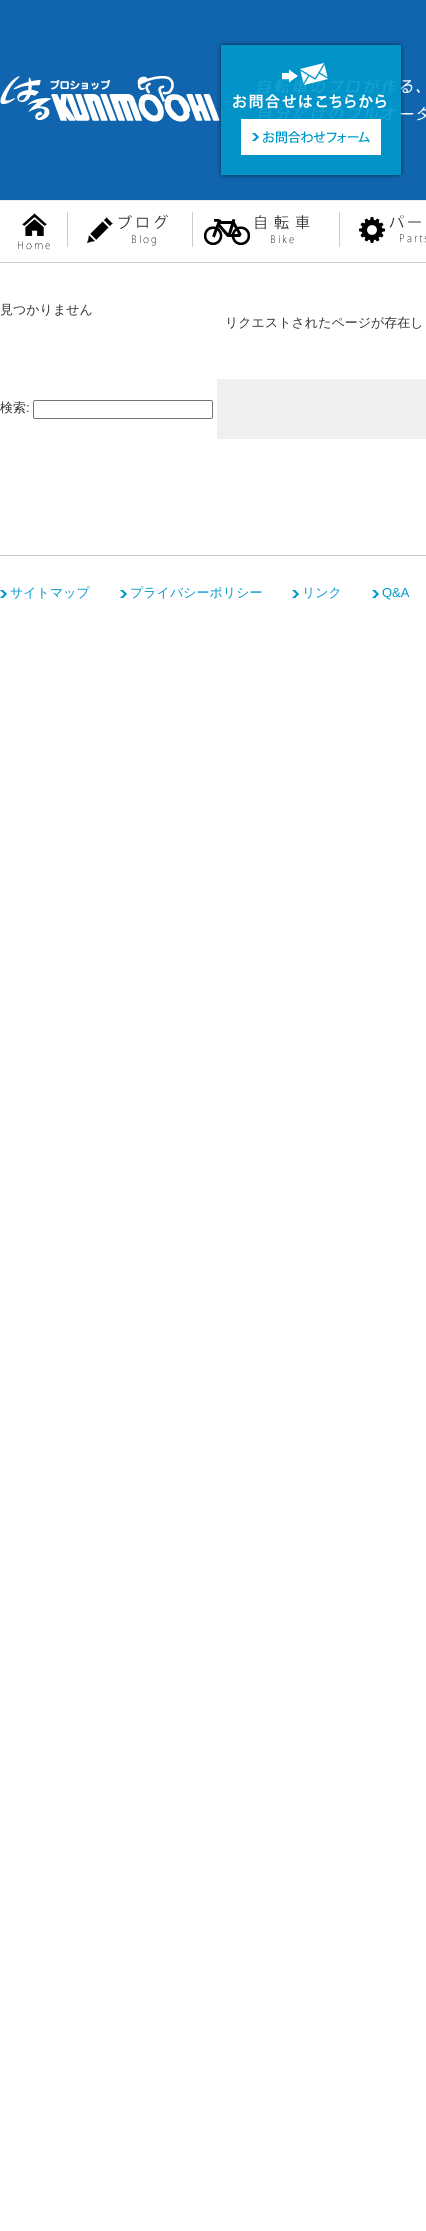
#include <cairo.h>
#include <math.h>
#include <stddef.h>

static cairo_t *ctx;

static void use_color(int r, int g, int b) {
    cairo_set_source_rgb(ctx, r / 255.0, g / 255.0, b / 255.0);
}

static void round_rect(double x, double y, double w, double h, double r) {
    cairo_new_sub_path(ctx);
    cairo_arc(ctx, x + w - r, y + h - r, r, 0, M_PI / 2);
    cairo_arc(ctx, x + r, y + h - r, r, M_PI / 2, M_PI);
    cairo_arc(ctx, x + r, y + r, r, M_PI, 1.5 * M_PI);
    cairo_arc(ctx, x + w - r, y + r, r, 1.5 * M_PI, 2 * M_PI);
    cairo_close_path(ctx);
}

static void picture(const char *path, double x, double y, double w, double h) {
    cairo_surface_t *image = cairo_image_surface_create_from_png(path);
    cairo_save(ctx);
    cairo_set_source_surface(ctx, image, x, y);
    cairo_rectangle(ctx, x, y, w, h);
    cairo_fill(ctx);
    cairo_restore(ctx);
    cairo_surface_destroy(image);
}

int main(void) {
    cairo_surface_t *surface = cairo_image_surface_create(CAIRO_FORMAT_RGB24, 426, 2231);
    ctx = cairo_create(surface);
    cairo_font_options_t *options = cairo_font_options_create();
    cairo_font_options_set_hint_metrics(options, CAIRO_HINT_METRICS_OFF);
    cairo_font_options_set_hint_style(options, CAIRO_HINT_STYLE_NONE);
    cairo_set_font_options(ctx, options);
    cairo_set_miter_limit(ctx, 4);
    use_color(255, 255, 255);
    cairo_paint(ctx);
    use_color(17, 101, 174);
    cairo_rectangle(ctx, 0, 0, 426, 200);
    cairo_fill(ctx);
    picture("img1.png", 0, 76, 220, 46);
    picture("img2.png", 257, 79, 169, 42);
    picture("img3.png", 217, 41, 188, 138);
    use_color(238, 238, 238);
    cairo_rectangle(ctx, 0, 200, 426, 1);
    cairo_fill(ctx);
    use_color(204, 204, 204);
    cairo_rectangle(ctx, 0, 262, 426, 1);
    cairo_fill(ctx);
    picture("img4.png", 18, 212, 50, 38);
    picture("img5.png", 87, 212, 106, 35);
    picture("img6.png", 204, 212, 136, 35);
    picture("img7.png", 359, 215, 67, 28);
    cairo_select_font_face(ctx, "WenQuanYi Zen Hei Medium", CAIRO_FONT_SLANT_NORMAL, CAIRO_FONT_WEIGHT_NORMAL);
    cairo_set_font_size(ctx, 13);
    use_color(51, 51, 51);
    cairo_move_to(ctx, 0, 314);
    cairo_show_text(ctx, "見つかりません");
    cairo_move_to(ctx, 225, 327);
    cairo_show_text(ctx, "リクエストされたページが存在し");
    cairo_move_to(ctx, 0, 412);
    cairo_show_text(ctx, "検索");
    cairo_select_font_face(ctx, "Liberation Sans", CAIRO_FONT_SLANT_NORMAL, CAIRO_FONT_WEIGHT_NORMAL);
    cairo_move_to(ctx, 26, 412);
    cairo_show_text(ctx, ":");
    round_rect(33.5, 400.5, 179, 18, 1.5);
    use_color(118, 118, 118);
    cairo_set_line_width(ctx, 1);
    cairo_stroke(ctx);
    use_color(239, 239, 239);
    cairo_rectangle(ctx, 217, 379, 209, 60);
    cairo_fill(ctx);
    use_color(204, 204, 204);
    cairo_rectangle(ctx, 0, 555, 426, 1);
    cairo_fill(ctx);
    picture("img8.png", 0, 590, 7, 8);
    cairo_select_font_face(ctx, "WenQuanYi Zen Hei Medium", CAIRO_FONT_SLANT_NORMAL, CAIRO_FONT_WEIGHT_NORMAL);
    use_color(0, 153, 203);
    cairo_move_to(ctx, 10, 597);
    cairo_show_text(ctx, "サイトマップ");
    picture("img8.png", 120, 590, 7, 8);
    cairo_move_to(ctx, 130, 597);
    cairo_show_text(ctx, "プライバシーポリシー");
    picture("img8.png", 292, 590, 7, 8);
    cairo_move_to(ctx, 302, 597);
    cairo_show_text(ctx, "リンク");
    picture("img8.png", 372, 590, 7, 8);
    cairo_select_font_face(ctx, "Liberation Sans", CAIRO_FONT_SLANT_NORMAL, CAIRO_FONT_WEIGHT_NORMAL);
    cairo_move_to(ctx, 382, 597);
    cairo_show_text(ctx, "Q&A");
    cairo_surface_write_to_png(surface, "result.png");
    cairo_font_options_destroy(options);
    cairo_destroy(ctx);
    cairo_surface_destroy(surface);
    return 0;
}
